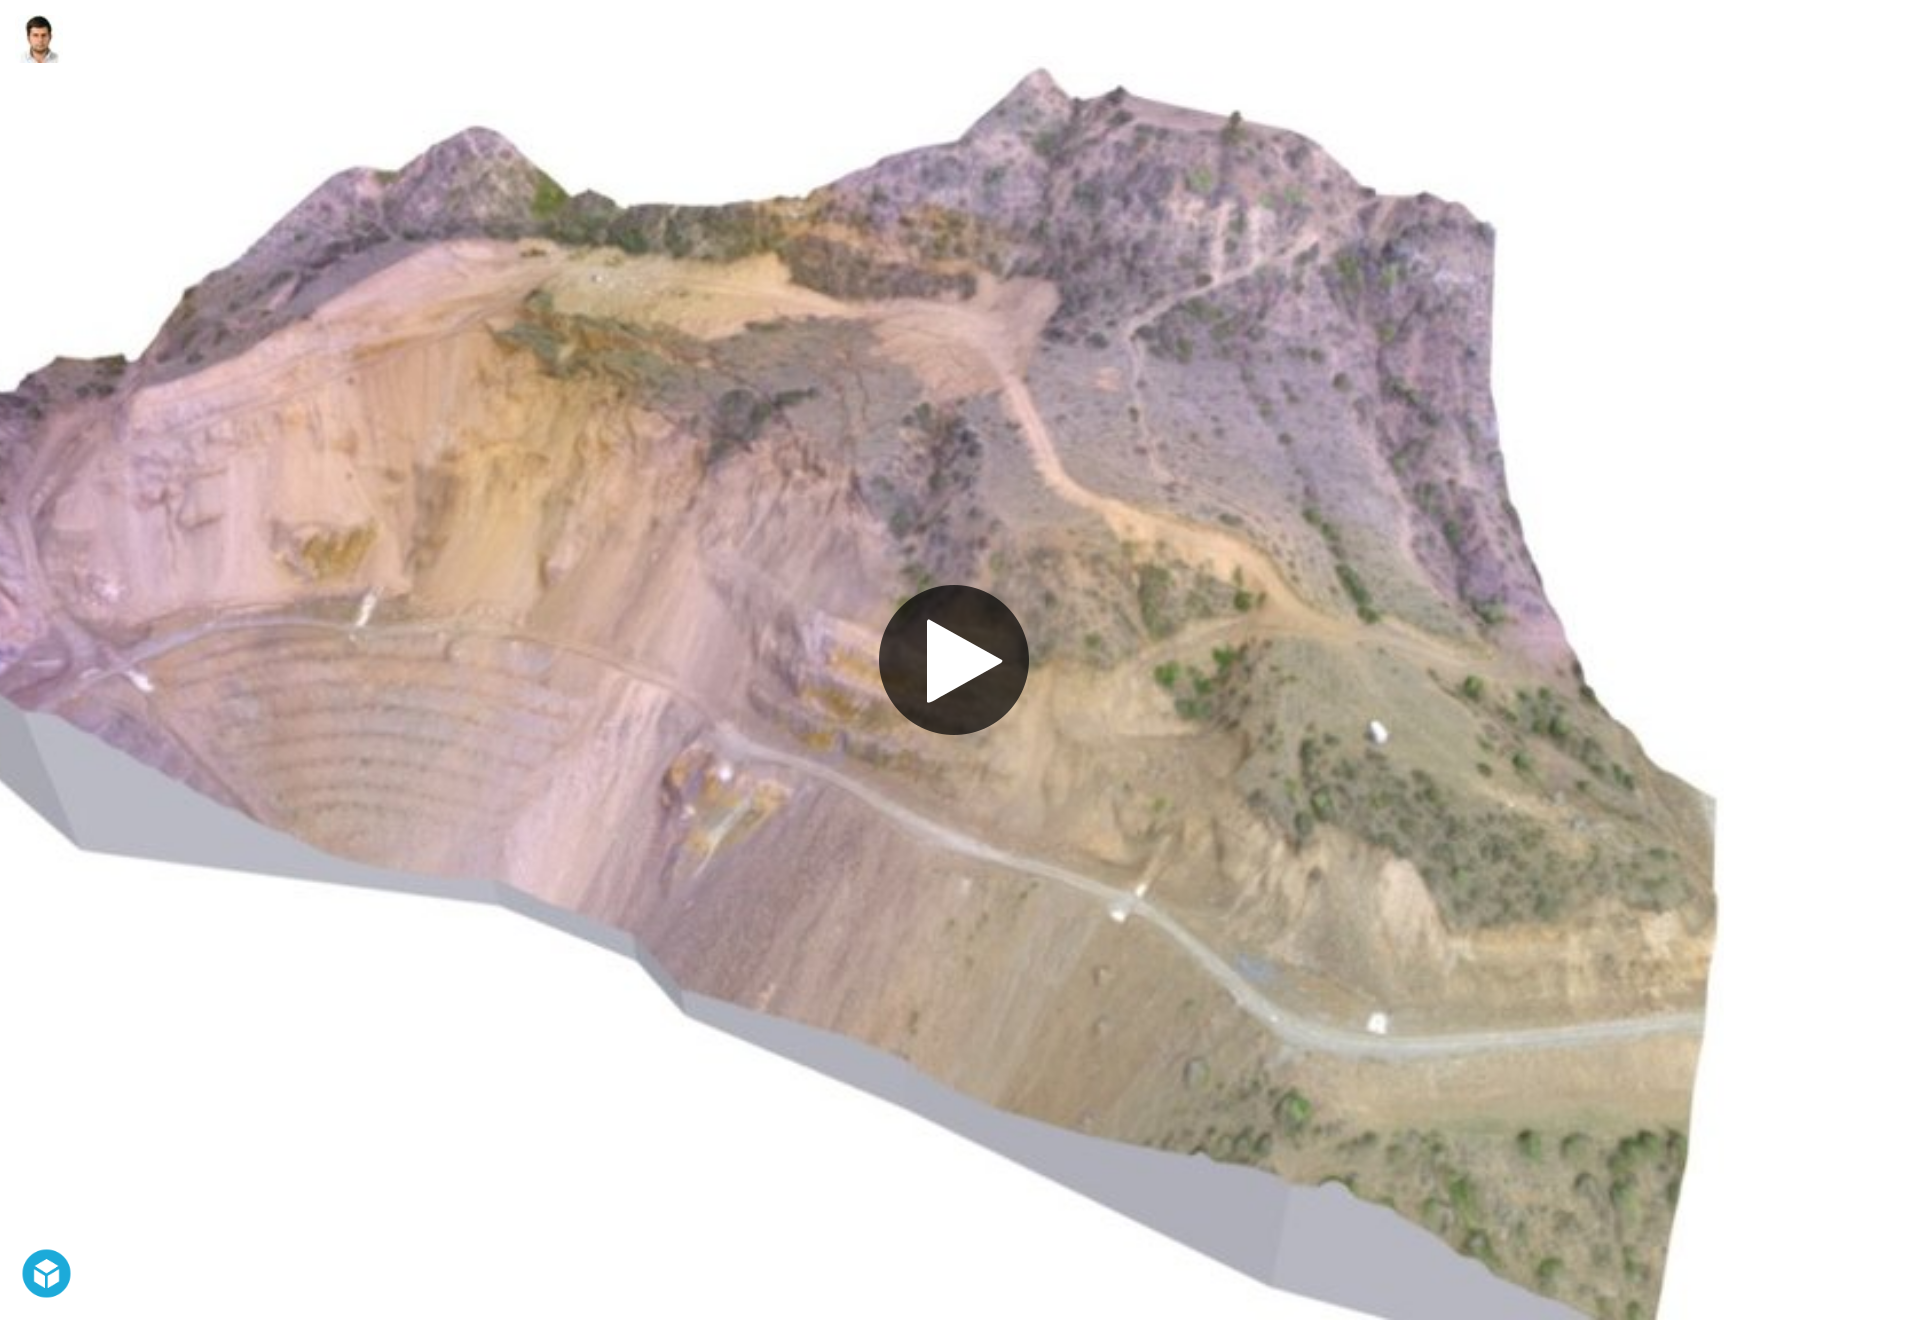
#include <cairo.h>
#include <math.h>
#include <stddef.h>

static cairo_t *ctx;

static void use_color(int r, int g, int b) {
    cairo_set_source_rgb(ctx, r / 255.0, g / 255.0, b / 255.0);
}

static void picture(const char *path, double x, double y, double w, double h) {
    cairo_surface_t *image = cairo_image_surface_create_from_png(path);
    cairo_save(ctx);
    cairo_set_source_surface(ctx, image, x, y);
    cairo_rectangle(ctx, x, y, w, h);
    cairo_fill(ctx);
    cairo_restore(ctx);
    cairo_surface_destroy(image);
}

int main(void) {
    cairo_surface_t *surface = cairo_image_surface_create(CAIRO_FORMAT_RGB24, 1908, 1320);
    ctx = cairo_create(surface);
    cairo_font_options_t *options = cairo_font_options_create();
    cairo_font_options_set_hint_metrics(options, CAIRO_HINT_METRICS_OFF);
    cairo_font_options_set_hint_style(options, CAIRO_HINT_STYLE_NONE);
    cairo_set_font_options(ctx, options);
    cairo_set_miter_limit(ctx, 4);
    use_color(255, 255, 255);
    cairo_paint(ctx);
    picture("img2.png", 0, 56, 1724, 1264);
    picture("img1.png", 15, 15, 48, 48);
    cairo_set_source_rgba(ctx, 0, 0, 0, 0.7);
    cairo_arc(ctx, 954, 660, 75, 0, 2 * M_PI);
    cairo_fill(ctx);
    use_color(255, 255, 255);
    cairo_new_path(ctx);
    cairo_move_to(ctx, 1001, 663);
    cairo_line_to(ctx, 942, 696);
    cairo_curve_to(ctx, 941, 696, 929, 705, 927, 702);
    cairo_line_to(ctx, 927, 621);
    cairo_curve_to(ctx, 928, 619, 929, 619, 930, 620);
    cairo_line_to(ctx, 1002, 660);
    cairo_curve_to(ctx, 1003, 661, 1002, 662, 1001, 663);
    cairo_close_path(ctx);
    cairo_fill(ctx);
    picture("img3.png", 22, 1249, 49, 49);
    cairo_surface_write_to_png(surface, "result.png");
    cairo_font_options_destroy(options);
    cairo_destroy(ctx);
    cairo_surface_destroy(surface);
    return 0;
}
